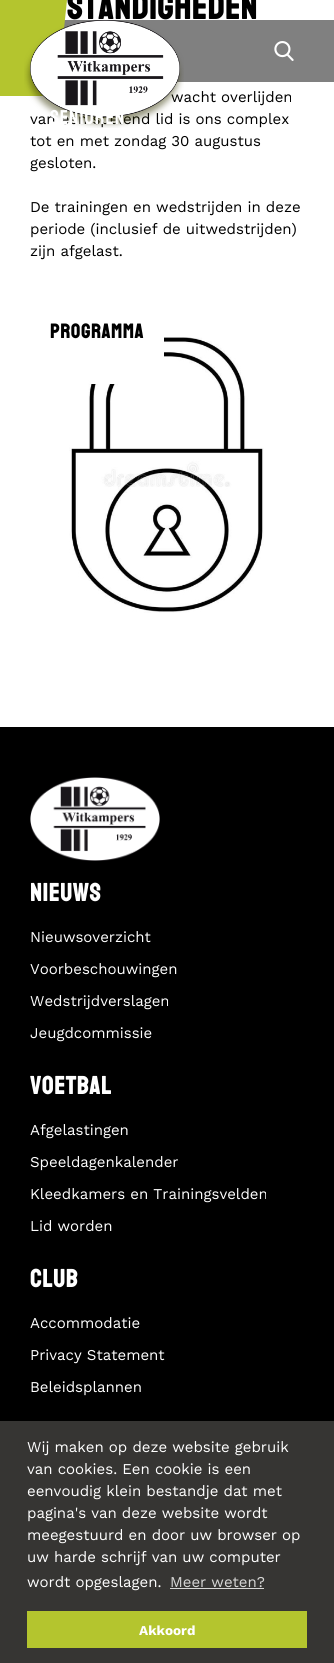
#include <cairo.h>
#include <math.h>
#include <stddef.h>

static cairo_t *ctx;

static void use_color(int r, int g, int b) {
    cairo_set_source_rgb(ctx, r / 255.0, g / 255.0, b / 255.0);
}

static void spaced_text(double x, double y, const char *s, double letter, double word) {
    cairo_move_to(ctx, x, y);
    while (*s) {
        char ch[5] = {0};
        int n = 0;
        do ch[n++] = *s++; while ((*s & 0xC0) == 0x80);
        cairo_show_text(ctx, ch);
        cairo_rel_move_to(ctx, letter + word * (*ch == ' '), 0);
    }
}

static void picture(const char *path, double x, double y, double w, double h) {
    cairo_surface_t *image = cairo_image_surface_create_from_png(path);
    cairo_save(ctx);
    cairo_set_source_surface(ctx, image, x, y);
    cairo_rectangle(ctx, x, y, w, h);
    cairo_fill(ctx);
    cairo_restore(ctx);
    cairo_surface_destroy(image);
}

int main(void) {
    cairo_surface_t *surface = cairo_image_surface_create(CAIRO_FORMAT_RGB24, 334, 1663);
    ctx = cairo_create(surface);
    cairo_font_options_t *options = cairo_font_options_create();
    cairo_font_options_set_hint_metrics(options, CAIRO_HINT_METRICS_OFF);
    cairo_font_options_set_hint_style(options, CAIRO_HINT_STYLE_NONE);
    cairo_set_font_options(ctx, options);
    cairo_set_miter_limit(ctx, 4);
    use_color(255, 255, 255);
    cairo_paint(ctx);
    use_color(128, 128, 128);
    cairo_rectangle(ctx, 64, 20, 270, 62);
    cairo_fill(ctx);
    cairo_select_font_face(ctx, "Staatliches", CAIRO_FONT_SLANT_NORMAL, CAIRO_FONT_WEIGHT_BOLD);
    cairo_set_font_size(ctx, 35);
    use_color(0, 0, 0);
    spaced_text(67, 19, "STANDIGHEDEN", 1, 0);
    cairo_select_font_face(ctx, "Work Sans", CAIRO_FONT_SLANT_NORMAL, CAIRO_FONT_WEIGHT_NORMAL);
    cairo_set_font_size(ctx, 15);
    cairo_move_to(ctx, 171, 102);
    cairo_show_text(ctx, "wacht overlijden");
    cairo_move_to(ctx, 30, 124);
    cairo_show_text(ctx, "van een spelend lid is ons complex");
    cairo_move_to(ctx, 30, 146);
    cairo_show_text(ctx, "tot en met zondag 30 augustus");
    cairo_move_to(ctx, 30, 168);
    cairo_show_text(ctx, "gesloten.");
    cairo_move_to(ctx, 30, 212);
    cairo_show_text(ctx, "De trainingen en wedstrijden in deze");
    cairo_move_to(ctx, 30, 234);
    cairo_show_text(ctx, "periode (inclusief de uitwedstrijden)");
    cairo_move_to(ctx, 30, 256);
    cairo_show_text(ctx, "zijn afgelast.");
    picture("img1.png", 69, 337, 195, 276);
    use_color(180, 197, 46);
    cairo_new_path(ctx);
    cairo_move_to(ctx, 0, 0);
    cairo_line_to(ctx, 0, 96);
    cairo_line_to(ctx, 57, 96);
    cairo_line_to(ctx, 67, 0);
    cairo_close_path(ctx);
    cairo_fill(ctx);
    picture("img2.png", 24, 20, 160, 108);
    picture("img3.png", 274, 41, 20, 20);
    cairo_select_font_face(ctx, "Staatliches", CAIRO_FONT_SLANT_NORMAL, CAIRO_FONT_WEIGHT_NORMAL);
    cairo_set_font_size(ctx, 20);
    use_color(255, 255, 255);
    spaced_text(50, 124, "SENIOREN", 1, 0);
    cairo_rectangle(ctx, 91, 337, 73, 47);
    cairo_fill(ctx);
    cairo_select_font_face(ctx, "Staatliches", CAIRO_FONT_SLANT_NORMAL, CAIRO_FONT_WEIGHT_BOLD);
    use_color(0, 0, 0);
    spaced_text(50, 338, "PROGRAMMA", 1, 0);
    cairo_rectangle(ctx, 0, 727, 334, 694);
    cairo_fill(ctx);
    picture("img4.png", 30, 777, 130, 84);
    cairo_set_font_size(ctx, 25);
    use_color(255, 255, 255);
    spaced_text(30, 901, "NIEUWS", 1, 0);
    cairo_select_font_face(ctx, "Work Sans", CAIRO_FONT_SLANT_NORMAL, CAIRO_FONT_WEIGHT_NORMAL);
    cairo_set_font_size(ctx, 15);
    cairo_move_to(ctx, 30, 942);
    cairo_show_text(ctx, "Nieuwsoverzicht");
    cairo_move_to(ctx, 30, 974);
    cairo_show_text(ctx, "Voorbeschouwingen");
    cairo_move_to(ctx, 30, 1006);
    cairo_show_text(ctx, "Wedstrijdverslagen");
    cairo_move_to(ctx, 30, 1038);
    cairo_show_text(ctx, "Jeugdcommissie");
    cairo_select_font_face(ctx, "Staatliches", CAIRO_FONT_SLANT_NORMAL, CAIRO_FONT_WEIGHT_BOLD);
    cairo_set_font_size(ctx, 25);
    spaced_text(30, 1094, "VOETBAL", 1, 0);
    cairo_select_font_face(ctx, "Work Sans", CAIRO_FONT_SLANT_NORMAL, CAIRO_FONT_WEIGHT_NORMAL);
    cairo_set_font_size(ctx, 15);
    cairo_move_to(ctx, 30, 1135);
    cairo_show_text(ctx, "Afgelastingen");
    cairo_move_to(ctx, 30, 1167);
    cairo_show_text(ctx, "Speeldagenkalender");
    cairo_move_to(ctx, 30, 1199);
    cairo_show_text(ctx, "Kleedkamers en Trainingsvelden");
    cairo_move_to(ctx, 30, 1231);
    cairo_show_text(ctx, "Lid worden");
    cairo_select_font_face(ctx, "Staatliches", CAIRO_FONT_SLANT_NORMAL, CAIRO_FONT_WEIGHT_BOLD);
    cairo_set_font_size(ctx, 25);
    spaced_text(30, 1287, "CLUB", 1, 0);
    cairo_select_font_face(ctx, "Work Sans", CAIRO_FONT_SLANT_NORMAL, CAIRO_FONT_WEIGHT_NORMAL);
    cairo_set_font_size(ctx, 15);
    cairo_move_to(ctx, 30, 1328);
    cairo_show_text(ctx, "Accommodatie");
    cairo_move_to(ctx, 30, 1360);
    cairo_show_text(ctx, "Privacy Statement");
    cairo_move_to(ctx, 30, 1392);
    cairo_show_text(ctx, "Beleidsplannen");
    use_color(54, 53, 51);
    cairo_rectangle(ctx, 0, 1421, 334, 242);
    cairo_fill(ctx);
    use_color(255, 255, 255);
    cairo_move_to(ctx, 27, 1452);
    cairo_show_text(ctx, "Wij maken op deze website gebruik");
    cairo_move_to(ctx, 27, 1474);
    cairo_show_text(ctx, "van cookies. Een cookie is een");
    cairo_move_to(ctx, 27, 1496);
    cairo_show_text(ctx, "eenvoudig klein bestandje dat met");
    cairo_move_to(ctx, 27, 1518);
    cairo_show_text(ctx, "pagina's van deze website wordt");
    cairo_move_to(ctx, 27, 1540);
    cairo_show_text(ctx, "meegestuurd en door uw browser op");
    cairo_move_to(ctx, 27, 1562);
    cairo_show_text(ctx, "uw harde schrijf van uw computer");
    cairo_move_to(ctx, 27, 1587);
    cairo_show_text(ctx, "wordt opgeslagen.");
    use_color(215, 215, 214);
    cairo_move_to(ctx, 170, 1587);
    cairo_show_text(ctx, "Meer weten?");
    cairo_rectangle(ctx, 170, 1588, 94, 1);
    cairo_fill(ctx);
    use_color(180, 197, 46);
    cairo_rectangle(ctx, 27, 1611, 280, 37);
    cairo_fill(ctx);
    cairo_select_font_face(ctx, "Work Sans", CAIRO_FONT_SLANT_NORMAL, CAIRO_FONT_WEIGHT_BOLD);
    cairo_set_font_size(ctx, 13.5);
    use_color(255, 255, 255);
    cairo_move_to(ctx, 139, 1635);
    cairo_show_text(ctx, "Akkoord");
    cairo_surface_write_to_png(surface, "result.png");
    cairo_font_options_destroy(options);
    cairo_destroy(ctx);
    cairo_surface_destroy(surface);
    return 0;
}
